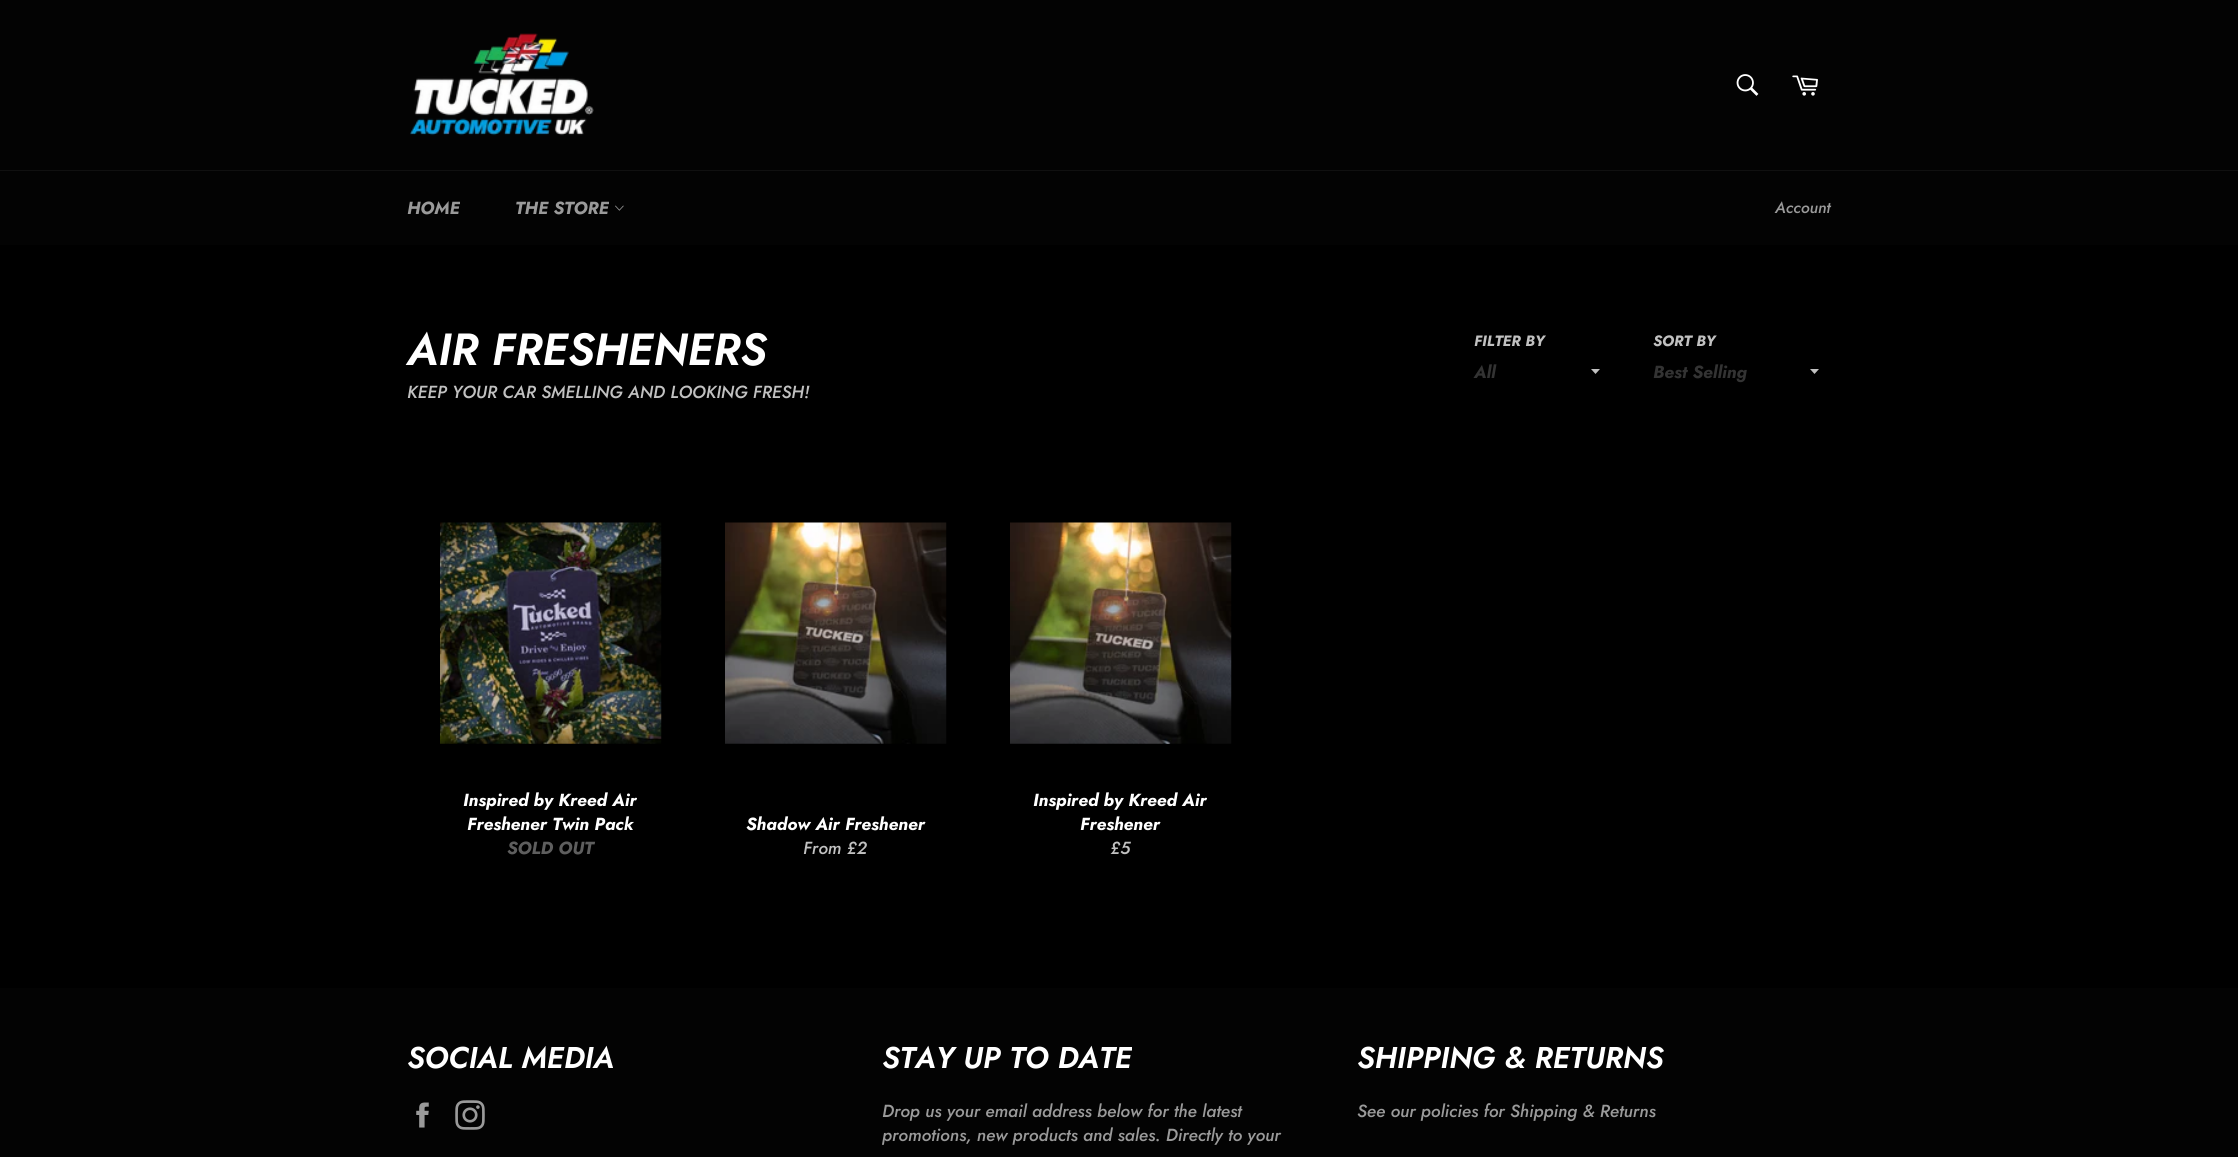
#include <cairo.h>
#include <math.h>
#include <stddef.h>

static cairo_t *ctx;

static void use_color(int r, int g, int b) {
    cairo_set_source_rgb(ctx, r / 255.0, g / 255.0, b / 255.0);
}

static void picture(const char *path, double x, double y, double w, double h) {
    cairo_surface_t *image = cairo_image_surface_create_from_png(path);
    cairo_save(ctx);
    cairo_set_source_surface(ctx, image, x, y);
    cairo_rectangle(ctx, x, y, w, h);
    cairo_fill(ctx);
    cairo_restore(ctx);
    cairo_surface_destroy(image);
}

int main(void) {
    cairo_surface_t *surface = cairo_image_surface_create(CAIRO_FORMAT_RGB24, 2238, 1157);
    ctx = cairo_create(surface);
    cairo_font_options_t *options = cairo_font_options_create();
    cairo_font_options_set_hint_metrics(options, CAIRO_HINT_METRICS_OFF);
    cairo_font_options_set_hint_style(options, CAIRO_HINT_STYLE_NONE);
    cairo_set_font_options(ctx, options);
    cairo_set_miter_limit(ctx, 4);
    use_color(0, 0, 0);
    cairo_paint(ctx);
    use_color(3, 3, 3);
    cairo_rectangle(ctx, 0, 0, 2238, 170);
    cairo_fill(ctx);
    picture("img1.png", 410, 33, 184, 103);
    picture("img2.png", 1736, 74, 23, 22);
    picture("img3.png", 1792, 75, 26, 21);
    cairo_rectangle(ctx, 0, 171, 2238, 74);
    cairo_fill(ctx);
    use_color(16, 16, 16);
    cairo_rectangle(ctx, 0, 170, 2238, 1);
    cairo_fill(ctx);
    cairo_select_font_face(ctx, "Jost", CAIRO_FONT_SLANT_ITALIC, CAIRO_FONT_WEIGHT_BOLD);
    cairo_set_font_size(ctx, 17.5);
    use_color(154, 154, 154);
    cairo_move_to(ctx, 407, 214);
    cairo_show_text(ctx, "HOME");
    cairo_move_to(ctx, 515, 214);
    cairo_show_text(ctx, "THE STORE");
    picture("img4.png", 615, 205, 9, 6);
    cairo_select_font_face(ctx, "Jost Medium", CAIRO_FONT_SLANT_ITALIC, CAIRO_FONT_WEIGHT_NORMAL);
    cairo_set_font_size(ctx, 16);
    cairo_move_to(ctx, 1775, 213);
    cairo_show_text(ctx, "Account");
    cairo_select_font_face(ctx, "Jost SemiBold", CAIRO_FONT_SLANT_ITALIC, CAIRO_FONT_WEIGHT_NORMAL);
    cairo_set_font_size(ctx, 45);
    use_color(255, 255, 255);
    cairo_move_to(ctx, 407, 365);
    cairo_show_text(ctx, "AIR FRESHENERS");
    cairo_select_font_face(ctx, "Jost Medium", CAIRO_FONT_SLANT_ITALIC, CAIRO_FONT_WEIGHT_NORMAL);
    cairo_set_font_size(ctx, 17.5);
    use_color(193, 193, 193);
    cairo_move_to(ctx, 407, 398);
    cairo_show_text(ctx, "KEEP YOUR CAR SMELLING AND LOOKING FRESH!");
    cairo_select_font_face(ctx, "Jost", CAIRO_FONT_SLANT_ITALIC, CAIRO_FONT_WEIGHT_BOLD);
    cairo_set_font_size(ctx, 15);
    cairo_move_to(ctx, 1474, 346);
    cairo_show_text(ctx, "FILTER BY");
    cairo_new_path(ctx);
    cairo_move_to(ctx, 1591, 369);
    cairo_line_to(ctx, 1595.5, 374);
    cairo_line_to(ctx, 1600, 369);
    cairo_close_path(ctx);
    cairo_fill(ctx);
    cairo_set_font_size(ctx, 17.5);
    use_color(51, 51, 51);
    cairo_move_to(ctx, 1474, 378);
    cairo_show_text(ctx, "All");
    cairo_set_font_size(ctx, 15);
    use_color(193, 193, 193);
    cairo_move_to(ctx, 1653, 346);
    cairo_show_text(ctx, "SORT BY");
    cairo_new_path(ctx);
    cairo_move_to(ctx, 1810, 369);
    cairo_line_to(ctx, 1814.5, 374);
    cairo_line_to(ctx, 1819, 369);
    cairo_close_path(ctx);
    cairo_fill(ctx);
    cairo_set_font_size(ctx, 17.5);
    use_color(51, 51, 51);
    cairo_move_to(ctx, 1653, 378);
    cairo_show_text(ctx, "Best Selling");
    picture("img5.png", 440, 522, 222, 222);
    use_color(255, 255, 255);
    cairo_move_to(ctx, 463, 806);
    cairo_show_text(ctx, "Inspired by Kreed Air");
    cairo_move_to(ctx, 467, 830);
    cairo_show_text(ctx, "Freshener Twin Pack");
    use_color(94, 94, 94);
    cairo_move_to(ctx, 507, 854);
    cairo_show_text(ctx, "SOLD OUT");
    picture("img6.png", 725, 522, 222, 222);
    use_color(255, 255, 255);
    cairo_move_to(ctx, 746, 830);
    cairo_show_text(ctx, "Shadow Air Freshener");
    cairo_select_font_face(ctx, "Jost Medium", CAIRO_FONT_SLANT_ITALIC, CAIRO_FONT_WEIGHT_NORMAL);
    use_color(193, 193, 193);
    cairo_move_to(ctx, 803, 854);
    cairo_show_text(ctx, "From £2");
    picture("img7.png", 1010, 522, 222, 222);
    cairo_select_font_face(ctx, "Jost", CAIRO_FONT_SLANT_ITALIC, CAIRO_FONT_WEIGHT_BOLD);
    use_color(255, 255, 255);
    cairo_move_to(ctx, 1033, 806);
    cairo_show_text(ctx, "Inspired by Kreed Air");
    cairo_move_to(ctx, 1080, 830);
    cairo_show_text(ctx, "Freshener");
    cairo_select_font_face(ctx, "Jost Medium", CAIRO_FONT_SLANT_ITALIC, CAIRO_FONT_WEIGHT_NORMAL);
    use_color(193, 193, 193);
    cairo_move_to(ctx, 1110, 854);
    cairo_show_text(ctx, "£5");
    use_color(3, 3, 3);
    cairo_rectangle(ctx, 0, 988, 2238, 169);
    cairo_fill(ctx);
    cairo_select_font_face(ctx, "Jost SemiBold", CAIRO_FONT_SLANT_ITALIC, CAIRO_FONT_WEIGHT_NORMAL);
    cairo_set_font_size(ctx, 30);
    use_color(255, 255, 255);
    cairo_move_to(ctx, 407, 1068);
    cairo_show_text(ctx, "SOCIAL MEDIA");
    picture("img8.png", 416, 1102, 13, 26);
    picture("img9.png", 455, 1100, 30, 30);
    cairo_move_to(ctx, 882, 1068);
    cairo_show_text(ctx, "STAY UP TO DATE");
    cairo_select_font_face(ctx, "Jost Medium", CAIRO_FONT_SLANT_ITALIC, CAIRO_FONT_WEIGHT_NORMAL);
    cairo_set_font_size(ctx, 17.5);
    use_color(154, 154, 154);
    cairo_move_to(ctx, 882, 1117);
    cairo_show_text(ctx, "Drop us your email address below for the latest");
    cairo_move_to(ctx, 882, 1141);
    cairo_show_text(ctx, "promotions, new products and sales. Directly to your");
    cairo_select_font_face(ctx, "Jost SemiBold", CAIRO_FONT_SLANT_ITALIC, CAIRO_FONT_WEIGHT_NORMAL);
    cairo_set_font_size(ctx, 30);
    use_color(255, 255, 255);
    cairo_move_to(ctx, 1357, 1068);
    cairo_show_text(ctx, "SHIPPING & RETURNS");
    cairo_select_font_face(ctx, "Jost Medium", CAIRO_FONT_SLANT_ITALIC, CAIRO_FONT_WEIGHT_NORMAL);
    cairo_set_font_size(ctx, 17.5);
    use_color(154, 154, 154);
    cairo_move_to(ctx, 1357, 1117);
    cairo_show_text(ctx, "See our policies for Shipping & Returns");
    cairo_surface_write_to_png(surface, "result.png");
    cairo_font_options_destroy(options);
    cairo_destroy(ctx);
    cairo_surface_destroy(surface);
    return 0;
}
